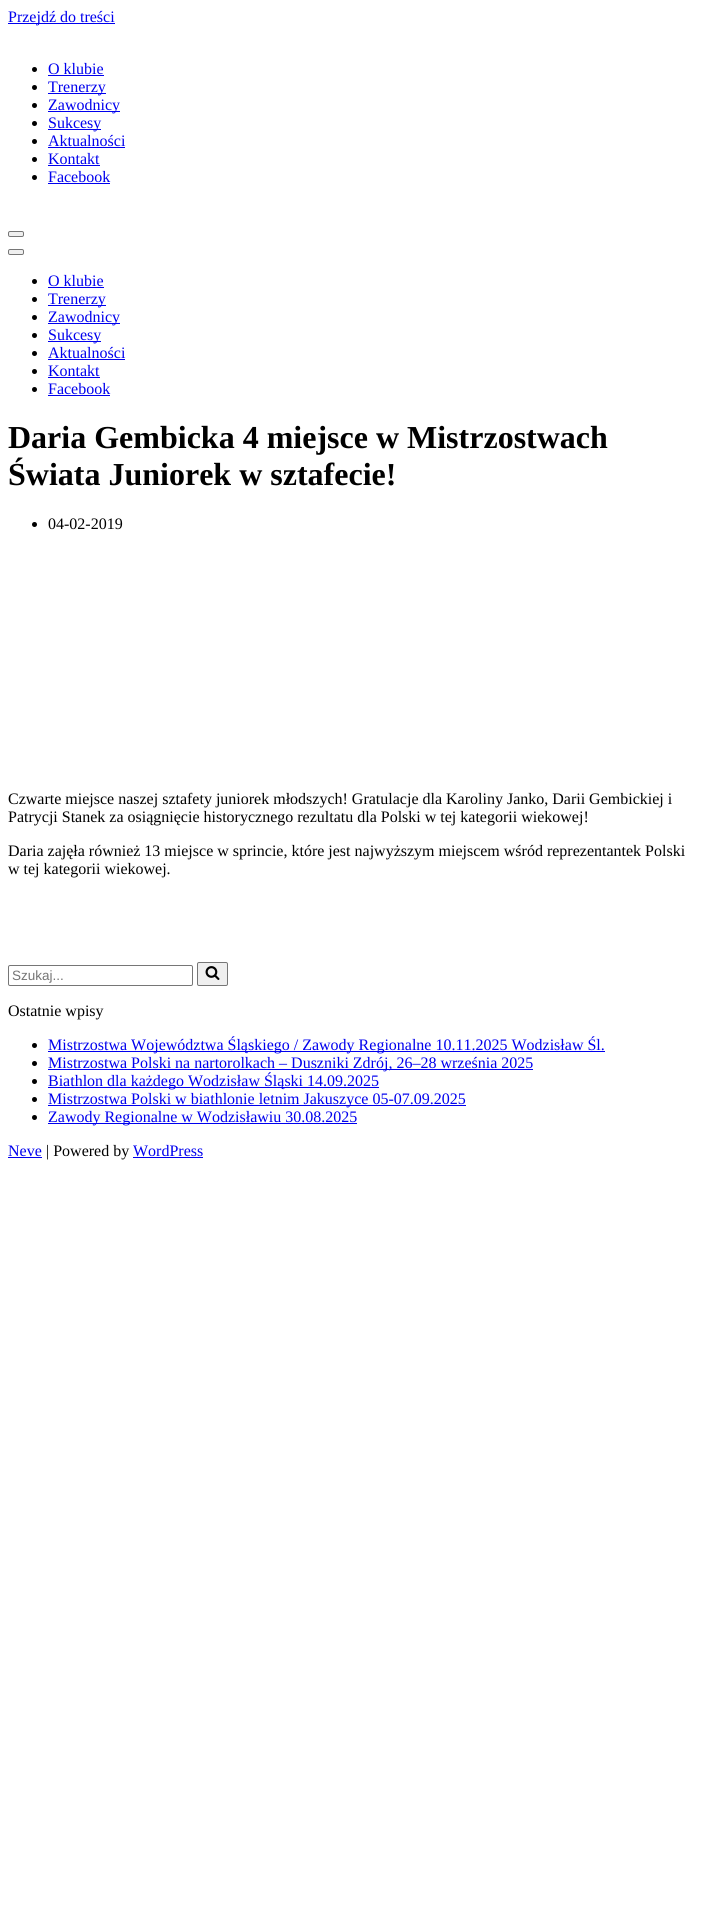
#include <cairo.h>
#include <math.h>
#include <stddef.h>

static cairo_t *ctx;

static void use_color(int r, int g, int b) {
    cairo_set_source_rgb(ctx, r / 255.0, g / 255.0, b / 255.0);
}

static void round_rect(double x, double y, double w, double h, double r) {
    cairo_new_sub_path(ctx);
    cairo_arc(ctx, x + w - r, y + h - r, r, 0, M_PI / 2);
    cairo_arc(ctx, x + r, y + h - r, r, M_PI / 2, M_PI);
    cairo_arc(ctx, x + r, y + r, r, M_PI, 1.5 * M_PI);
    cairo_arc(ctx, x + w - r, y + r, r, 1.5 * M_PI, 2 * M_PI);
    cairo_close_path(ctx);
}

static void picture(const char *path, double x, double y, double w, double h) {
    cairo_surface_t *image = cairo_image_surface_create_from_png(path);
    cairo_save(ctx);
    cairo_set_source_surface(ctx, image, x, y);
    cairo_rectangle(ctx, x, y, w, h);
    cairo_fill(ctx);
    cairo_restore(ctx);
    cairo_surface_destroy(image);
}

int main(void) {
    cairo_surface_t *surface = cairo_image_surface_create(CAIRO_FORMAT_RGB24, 701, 1911);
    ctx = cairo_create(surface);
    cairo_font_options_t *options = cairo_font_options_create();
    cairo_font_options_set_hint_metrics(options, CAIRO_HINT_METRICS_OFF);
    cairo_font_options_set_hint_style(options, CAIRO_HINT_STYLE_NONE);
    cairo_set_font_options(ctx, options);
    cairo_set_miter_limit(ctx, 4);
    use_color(255, 255, 255);
    cairo_paint(ctx);
    use_color(0, 0, 238);
    cairo_rectangle(ctx, 8, 23, 107, 1);
    cairo_fill(ctx);
    cairo_select_font_face(ctx, "Liberation Serif", CAIRO_FONT_SLANT_NORMAL, CAIRO_FONT_WEIGHT_NORMAL);
    cairo_set_font_size(ctx, 16);
    cairo_move_to(ctx, 8, 22);
    cairo_show_text(ctx, "Przejdź do treści");
    use_color(0, 0, 0);
    cairo_new_path(ctx);
    cairo_arc(ctx, 34.5, 69.5, 2.5, 0, 2 * M_PI);
    cairo_fill(ctx);
    use_color(0, 0, 238);
    cairo_move_to(ctx, 48, 74);
    cairo_show_text(ctx, "O klubie");
    cairo_rectangle(ctx, 48, 75, 56, 1);
    cairo_fill(ctx);
    use_color(0, 0, 0);
    cairo_arc(ctx, 34.5, 87.5, 2.5, 0, 2 * M_PI);
    cairo_fill(ctx);
    use_color(0, 0, 238);
    cairo_rectangle(ctx, 48, 93, 58, 1);
    cairo_fill(ctx);
    cairo_move_to(ctx, 48, 92);
    cairo_show_text(ctx, "Trenerzy");
    use_color(0, 0, 0);
    cairo_new_path(ctx);
    cairo_arc(ctx, 34.5, 105.5, 2.5, 0, 2 * M_PI);
    cairo_fill(ctx);
    use_color(0, 0, 238);
    cairo_rectangle(ctx, 48, 111, 72, 1);
    cairo_fill(ctx);
    cairo_move_to(ctx, 48, 110);
    cairo_show_text(ctx, "Zawodnicy");
    use_color(0, 0, 0);
    cairo_new_path(ctx);
    cairo_arc(ctx, 34.5, 123.5, 2.5, 0, 2 * M_PI);
    cairo_fill(ctx);
    use_color(0, 0, 238);
    cairo_rectangle(ctx, 48, 129, 53, 1);
    cairo_fill(ctx);
    cairo_move_to(ctx, 48, 128);
    cairo_show_text(ctx, "Sukcesy");
    use_color(0, 0, 0);
    cairo_new_path(ctx);
    cairo_arc(ctx, 34.5, 141.5, 2.5, 0, 2 * M_PI);
    cairo_fill(ctx);
    use_color(0, 0, 238);
    cairo_move_to(ctx, 48, 146);
    cairo_show_text(ctx, "Aktualności");
    cairo_rectangle(ctx, 48, 147, 77, 1);
    cairo_fill(ctx);
    use_color(0, 0, 0);
    cairo_arc(ctx, 34.5, 159.5, 2.5, 0, 2 * M_PI);
    cairo_fill(ctx);
    use_color(0, 0, 238);
    cairo_move_to(ctx, 48, 164);
    cairo_show_text(ctx, "Kontakt");
    cairo_rectangle(ctx, 48, 165, 52, 1);
    cairo_fill(ctx);
    use_color(0, 0, 0);
    cairo_arc(ctx, 34.5, 177.5, 2.5, 0, 2 * M_PI);
    cairo_fill(ctx);
    use_color(0, 0, 238);
    cairo_move_to(ctx, 48, 182);
    cairo_show_text(ctx, "Facebook");
    cairo_rectangle(ctx, 48, 183, 62, 1);
    cairo_fill(ctx);
    use_color(239, 239, 239);
    round_rect(8.5, 231.5, 15, 5, 1.5);
    cairo_fill_preserve(ctx);
    use_color(118, 118, 118);
    cairo_set_line_width(ctx, 1);
    cairo_stroke(ctx);
    use_color(239, 239, 239);
    round_rect(8.5, 249.5, 15, 5, 1.5);
    cairo_fill_preserve(ctx);
    use_color(118, 118, 118);
    cairo_stroke(ctx);
    use_color(0, 0, 0);
    cairo_arc(ctx, 34.5, 281.5, 2.5, 0, 2 * M_PI);
    cairo_fill(ctx);
    use_color(0, 0, 238);
    cairo_move_to(ctx, 48, 286);
    cairo_show_text(ctx, "O klubie");
    cairo_rectangle(ctx, 48, 287, 56, 1);
    cairo_fill(ctx);
    use_color(0, 0, 0);
    cairo_arc(ctx, 34.5, 299.5, 2.5, 0, 2 * M_PI);
    cairo_fill(ctx);
    use_color(0, 0, 238);
    cairo_rectangle(ctx, 48, 305, 58, 1);
    cairo_fill(ctx);
    cairo_move_to(ctx, 48, 304);
    cairo_show_text(ctx, "Trenerzy");
    use_color(0, 0, 0);
    cairo_new_path(ctx);
    cairo_arc(ctx, 34.5, 317.5, 2.5, 0, 2 * M_PI);
    cairo_fill(ctx);
    use_color(0, 0, 238);
    cairo_rectangle(ctx, 48, 323, 72, 1);
    cairo_fill(ctx);
    cairo_move_to(ctx, 48, 322);
    cairo_show_text(ctx, "Zawodnicy");
    use_color(0, 0, 0);
    cairo_new_path(ctx);
    cairo_arc(ctx, 34.5, 335.5, 2.5, 0, 2 * M_PI);
    cairo_fill(ctx);
    use_color(0, 0, 238);
    cairo_rectangle(ctx, 48, 341, 53, 1);
    cairo_fill(ctx);
    cairo_move_to(ctx, 48, 340);
    cairo_show_text(ctx, "Sukcesy");
    use_color(0, 0, 0);
    cairo_new_path(ctx);
    cairo_arc(ctx, 34.5, 353.5, 2.5, 0, 2 * M_PI);
    cairo_fill(ctx);
    use_color(0, 0, 238);
    cairo_move_to(ctx, 48, 358);
    cairo_show_text(ctx, "Aktualności");
    cairo_rectangle(ctx, 48, 359, 77, 1);
    cairo_fill(ctx);
    use_color(0, 0, 0);
    cairo_arc(ctx, 34.5, 371.5, 2.5, 0, 2 * M_PI);
    cairo_fill(ctx);
    use_color(0, 0, 238);
    cairo_move_to(ctx, 48, 376);
    cairo_show_text(ctx, "Kontakt");
    cairo_rectangle(ctx, 48, 377, 52, 1);
    cairo_fill(ctx);
    use_color(0, 0, 0);
    cairo_arc(ctx, 34.5, 389.5, 2.5, 0, 2 * M_PI);
    cairo_fill(ctx);
    use_color(0, 0, 238);
    cairo_move_to(ctx, 48, 394);
    cairo_show_text(ctx, "Facebook");
    cairo_rectangle(ctx, 48, 395, 62, 1);
    cairo_fill(ctx);
    cairo_select_font_face(ctx, "Liberation Serif", CAIRO_FONT_SLANT_NORMAL, CAIRO_FONT_WEIGHT_BOLD);
    cairo_set_font_size(ctx, 32);
    use_color(0, 0, 0);
    cairo_move_to(ctx, 8, 448);
    cairo_show_text(ctx, "Daria Gembicka 4 miejsce w Mistrzostwach");
    cairo_move_to(ctx, 8, 485);
    cairo_show_text(ctx, "Świata Juniorek w sztafecie!");
    cairo_new_path(ctx);
    cairo_arc(ctx, 34.5, 524.5, 2.5, 0, 2 * M_PI);
    cairo_fill(ctx);
    cairo_select_font_face(ctx, "Liberation Serif", CAIRO_FONT_SLANT_NORMAL, CAIRO_FONT_WEIGHT_NORMAL);
    cairo_set_font_size(ctx, 16);
    cairo_move_to(ctx, 48, 529);
    cairo_show_text(ctx, "04-02-2019");
    cairo_move_to(ctx, 8, 804);
    cairo_show_text(ctx, "Czwarte miejsce naszej sztafety juniorek młodszych! Gratulacje dla Karoliny Janko, Darii Gembickiej i");
    cairo_move_to(ctx, 8, 822);
    cairo_show_text(ctx, "Patrycji Stanek za osiągnięcie historycznego rezultatu dla Polski w tej kategorii wiekowej!");
    cairo_move_to(ctx, 8, 856);
    cairo_show_text(ctx, "Daria zajęła również 13 miejsce w sprincie, które jest najwyższym miejscem wśród reprezentantek Polski");
    cairo_move_to(ctx, 8, 874);
    cairo_show_text(ctx, "w tej kategorii wiekowej.");
    round_rect(8.5, 965.5, 184, 20, 1.5);
    use_color(118, 118, 118);
    cairo_stroke(ctx);
    cairo_select_font_face(ctx, "Liberation Sans", CAIRO_FONT_SLANT_NORMAL, CAIRO_FONT_WEIGHT_NORMAL);
    cairo_set_font_size(ctx, 13.5);
    use_color(117, 117, 117);
    cairo_move_to(ctx, 12, 980);
    cairo_show_text(ctx, "Szukaj...");
    use_color(239, 239, 239);
    round_rect(197.5, 962.5, 30, 23, 1.5);
    cairo_fill_preserve(ctx);
    use_color(118, 118, 118);
    cairo_stroke(ctx);
    picture("img1.png", 205, 966, 15, 14);
    cairo_select_font_face(ctx, "Liberation Serif", CAIRO_FONT_SLANT_NORMAL, CAIRO_FONT_WEIGHT_NORMAL);
    cairo_set_font_size(ctx, 16);
    use_color(0, 0, 0);
    cairo_move_to(ctx, 8, 1016);
    cairo_show_text(ctx, "Ostatnie wpisy");
    cairo_new_path(ctx);
    cairo_arc(ctx, 34.5, 1045.5, 2.5, 0, 2 * M_PI);
    cairo_fill(ctx);
    use_color(0, 0, 238);
    cairo_rectangle(ctx, 48, 1051, 557, 1);
    cairo_fill(ctx);
    cairo_move_to(ctx, 48, 1050);
    cairo_show_text(ctx, "Mistrzostwa Województwa Śląskiego / Zawody Regionalne 10.11.2025 Wodzisław Śl.");
    use_color(0, 0, 0);
    cairo_new_path(ctx);
    cairo_arc(ctx, 34.5, 1063.5, 2.5, 0, 2 * M_PI);
    cairo_fill(ctx);
    use_color(0, 0, 238);
    cairo_rectangle(ctx, 48, 1069, 485, 1);
    cairo_fill(ctx);
    cairo_move_to(ctx, 48, 1068);
    cairo_show_text(ctx, "Mistrzostwa Polski na nartorolkach – Duszniki Zdrój, 26–28 września 2025");
    use_color(0, 0, 0);
    cairo_new_path(ctx);
    cairo_arc(ctx, 34.5, 1081.5, 2.5, 0, 2 * M_PI);
    cairo_fill(ctx);
    use_color(0, 0, 238);
    cairo_rectangle(ctx, 48, 1087, 331, 1);
    cairo_fill(ctx);
    cairo_move_to(ctx, 48, 1086);
    cairo_show_text(ctx, "Biathlon dla każdego Wodzisław Śląski 14.09.2025");
    use_color(0, 0, 0);
    cairo_new_path(ctx);
    cairo_arc(ctx, 34.5, 1099.5, 2.5, 0, 2 * M_PI);
    cairo_fill(ctx);
    use_color(0, 0, 238);
    cairo_rectangle(ctx, 48, 1105, 418, 1);
    cairo_fill(ctx);
    cairo_move_to(ctx, 48, 1104);
    cairo_show_text(ctx, "Mistrzostwa Polski w biathlonie letnim Jakuszyce 05-07.09.2025");
    use_color(0, 0, 0);
    cairo_new_path(ctx);
    cairo_arc(ctx, 34.5, 1117.5, 2.5, 0, 2 * M_PI);
    cairo_fill(ctx);
    use_color(0, 0, 238);
    cairo_rectangle(ctx, 48, 1123, 309, 1);
    cairo_fill(ctx);
    cairo_move_to(ctx, 48, 1122);
    cairo_show_text(ctx, "Zawody Regionalne w Wodzisławiu 30.08.2025");
    cairo_move_to(ctx, 8, 1156);
    cairo_show_text(ctx, "Neve");
    cairo_rectangle(ctx, 8, 1157, 34, 1);
    cairo_fill(ctx);
    use_color(0, 0, 0);
    cairo_move_to(ctx, 46, 1156);
    cairo_show_text(ctx, "| Powered by");
    use_color(0, 0, 238);
    cairo_move_to(ctx, 133, 1156);
    cairo_show_text(ctx, "WordPress");
    cairo_rectangle(ctx, 133, 1157, 70, 1);
    cairo_fill(ctx);
    cairo_surface_write_to_png(surface, "result.png");
    cairo_font_options_destroy(options);
    cairo_destroy(ctx);
    cairo_surface_destroy(surface);
    return 0;
}
